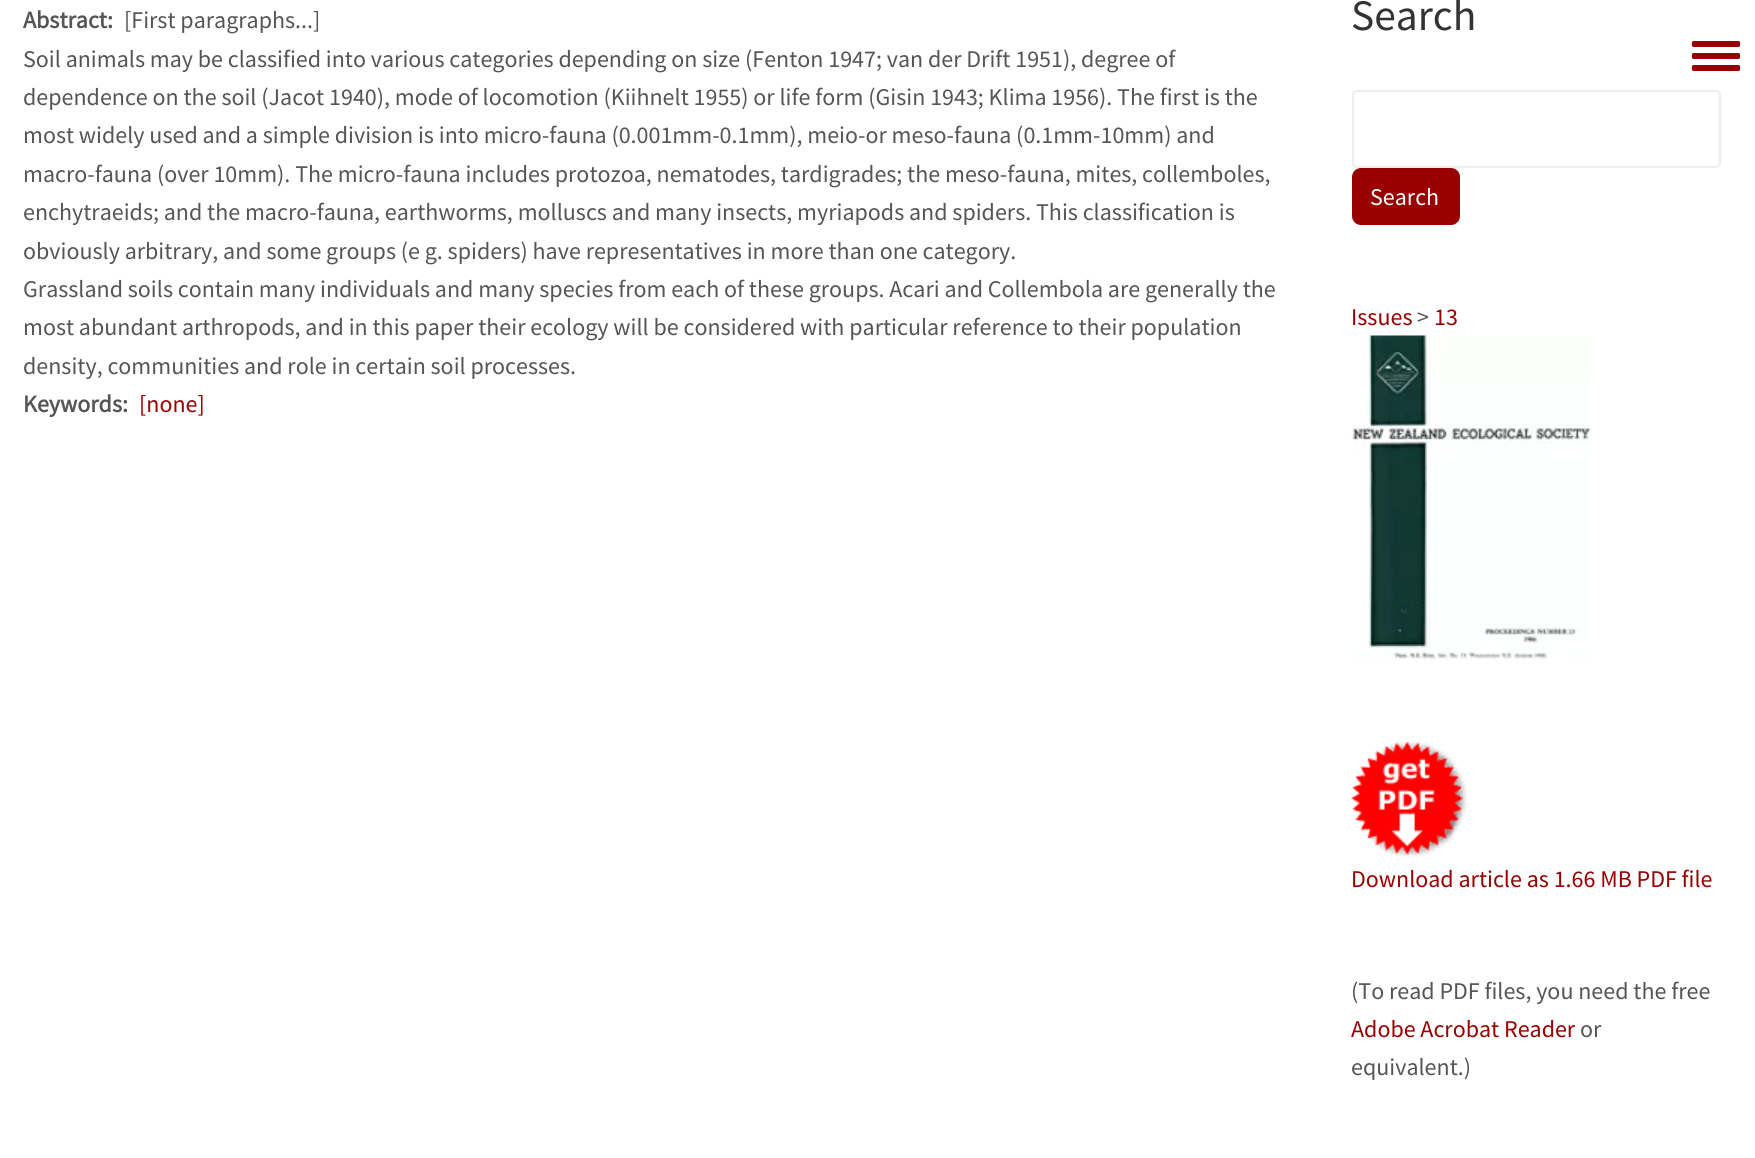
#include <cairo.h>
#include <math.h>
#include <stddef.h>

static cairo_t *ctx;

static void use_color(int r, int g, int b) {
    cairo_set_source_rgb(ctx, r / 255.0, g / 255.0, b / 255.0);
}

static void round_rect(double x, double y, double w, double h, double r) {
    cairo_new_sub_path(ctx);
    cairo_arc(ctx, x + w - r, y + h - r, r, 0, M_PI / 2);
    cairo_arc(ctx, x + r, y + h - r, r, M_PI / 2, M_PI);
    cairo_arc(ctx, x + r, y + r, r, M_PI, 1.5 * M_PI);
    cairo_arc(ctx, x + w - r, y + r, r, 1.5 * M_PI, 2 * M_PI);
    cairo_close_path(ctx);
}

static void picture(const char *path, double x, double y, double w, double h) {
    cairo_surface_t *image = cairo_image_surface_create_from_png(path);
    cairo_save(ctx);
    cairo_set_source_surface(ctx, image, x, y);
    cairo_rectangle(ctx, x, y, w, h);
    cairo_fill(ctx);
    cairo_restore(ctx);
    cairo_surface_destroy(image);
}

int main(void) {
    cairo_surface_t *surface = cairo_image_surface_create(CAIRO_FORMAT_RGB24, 1755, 1158);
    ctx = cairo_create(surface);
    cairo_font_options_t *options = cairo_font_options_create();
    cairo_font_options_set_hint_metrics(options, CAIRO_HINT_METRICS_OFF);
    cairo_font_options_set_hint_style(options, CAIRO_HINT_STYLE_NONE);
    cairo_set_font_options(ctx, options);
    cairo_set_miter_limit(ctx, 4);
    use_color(255, 255, 255);
    cairo_paint(ctx);
    cairo_select_font_face(ctx, "Source Sans Pro", CAIRO_FONT_SLANT_NORMAL, CAIRO_FONT_WEIGHT_BOLD);
    cairo_set_font_size(ctx, 24);
    use_color(85, 85, 85);
    cairo_move_to(ctx, 23, 28);
    cairo_show_text(ctx, "Abstract:");
    cairo_select_font_face(ctx, "Source Sans Pro", CAIRO_FONT_SLANT_NORMAL, CAIRO_FONT_WEIGHT_NORMAL);
    cairo_move_to(ctx, 124, 28);
    cairo_show_text(ctx, "[First paragraphs...]");
    cairo_move_to(ctx, 23, 67);
    cairo_show_text(ctx, "Soil animals may be classified into various categories depending on size (Fenton 1947; van der Drift 1951), degree of");
    cairo_move_to(ctx, 23, 105);
    cairo_show_text(ctx, "dependence on the soil (Jacot 1940), mode of locomotion (Kiihnelt 1955) or life form (Gisin 1943; Klima 1956). The first is the");
    cairo_move_to(ctx, 23, 143);
    cairo_show_text(ctx, "most widely used and a simple division is into micro-fauna (0.001mm-0.1mm), meio-or meso-fauna (0.1mm-10mm) and");
    cairo_move_to(ctx, 23, 182);
    cairo_show_text(ctx, "macro-fauna (over 10mm). The micro-fauna includes protozoa, nematodes, tardigrades; the meso-fauna, mites, collemboles,");
    cairo_move_to(ctx, 23, 220);
    cairo_show_text(ctx, "enchytraeids; and the macro-fauna, earthworms, molluscs and many insects, myriapods and spiders. This classification is");
    cairo_move_to(ctx, 23, 259);
    cairo_show_text(ctx, "obviously arbitrary, and some groups (e g. spiders) have representatives in more than one category.");
    cairo_move_to(ctx, 23, 297);
    cairo_show_text(ctx, "Grassland soils contain many individuals and many species from each of these groups. Acari and Collembola are generally the");
    cairo_move_to(ctx, 23, 335);
    cairo_show_text(ctx, "most abundant arthropods, and in this paper their ecology will be considered with particular reference to their population");
    cairo_move_to(ctx, 23, 374);
    cairo_show_text(ctx, "density, communities and role in certain soil processes.");
    cairo_select_font_face(ctx, "Source Sans Pro", CAIRO_FONT_SLANT_NORMAL, CAIRO_FONT_WEIGHT_BOLD);
    cairo_move_to(ctx, 23, 412);
    cairo_show_text(ctx, "Keywords:");
    cairo_select_font_face(ctx, "Source Sans Pro", CAIRO_FONT_SLANT_NORMAL, CAIRO_FONT_WEIGHT_NORMAL);
    use_color(153, 0, 0);
    cairo_move_to(ctx, 139, 412);
    cairo_show_text(ctx, "[none]");
    cairo_set_font_size(ctx, 43.5);
    use_color(51, 51, 51);
    cairo_move_to(ctx, 1351, 30);
    cairo_show_text(ctx, "Search");
    round_rect(1353, 91, 367, 76, 4);
    use_color(237, 237, 237);
    cairo_stroke(ctx);
    use_color(153, 0, 0);
    round_rect(1353, 169, 106, 55, 8);
    cairo_fill_preserve(ctx);
    cairo_stroke(ctx);
    cairo_set_font_size(ctx, 24);
    use_color(255, 255, 255);
    cairo_move_to(ctx, 1370, 205);
    cairo_show_text(ctx, "Search");
    use_color(153, 0, 0);
    cairo_move_to(ctx, 1351, 325);
    cairo_show_text(ctx, "Issues");
    use_color(85, 85, 85);
    cairo_move_to(ctx, 1417, 325);
    cairo_show_text(ctx, ">");
    use_color(153, 0, 0);
    cairo_move_to(ctx, 1434, 325);
    cairo_show_text(ctx, "13");
    picture("img1.png", 1351, 335, 241, 325);
    picture("img2.png", 1351, 741, 116, 117);
    cairo_move_to(ctx, 1351, 887);
    cairo_show_text(ctx, "Download article as 1.66 MB PDF file");
    use_color(85, 85, 85);
    cairo_move_to(ctx, 1351, 999);
    cairo_show_text(ctx, "(To read PDF files, you need the free");
    use_color(153, 0, 0);
    cairo_move_to(ctx, 1351, 1037);
    cairo_show_text(ctx, "Adobe Acrobat Reader");
    use_color(85, 85, 85);
    cairo_move_to(ctx, 1580, 1037);
    cairo_show_text(ctx, "or");
    cairo_move_to(ctx, 1351, 1075);
    cairo_show_text(ctx, "equivalent.)");
    use_color(153, 0, 0);
    round_rect(1692, 53, 48, 6, 1.5);
    cairo_fill(ctx);
    round_rect(1692, 41, 48, 6, 1.5);
    cairo_fill(ctx);
    round_rect(1692, 65, 48, 6, 1.5);
    cairo_fill(ctx);
    cairo_surface_write_to_png(surface, "result.png");
    cairo_font_options_destroy(options);
    cairo_destroy(ctx);
    cairo_surface_destroy(surface);
    return 0;
}
